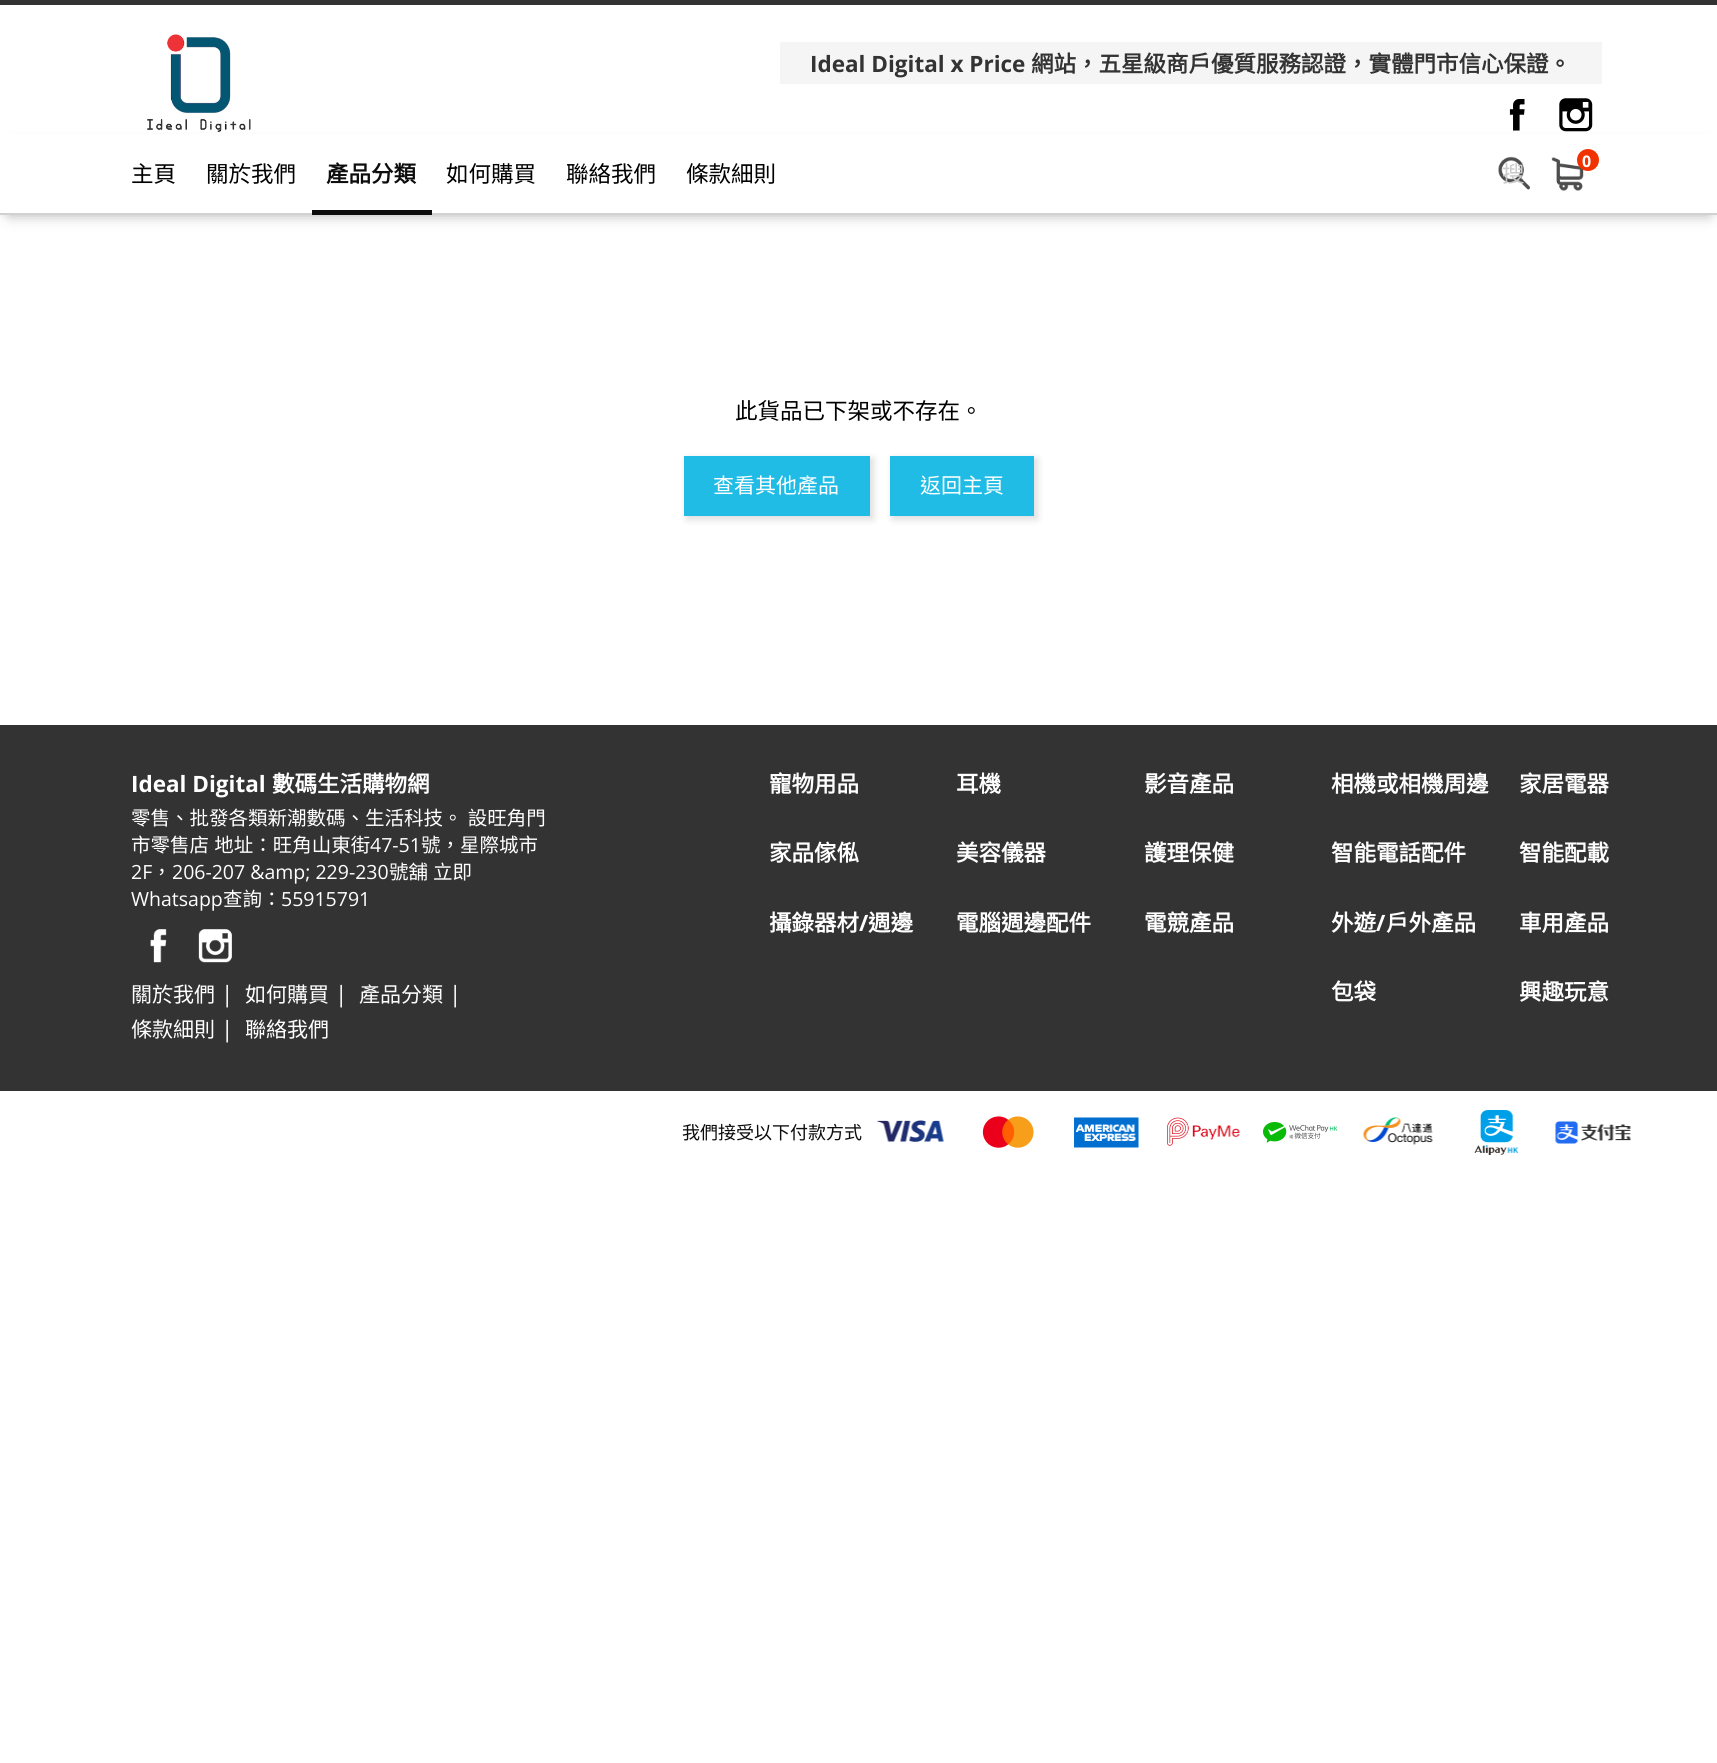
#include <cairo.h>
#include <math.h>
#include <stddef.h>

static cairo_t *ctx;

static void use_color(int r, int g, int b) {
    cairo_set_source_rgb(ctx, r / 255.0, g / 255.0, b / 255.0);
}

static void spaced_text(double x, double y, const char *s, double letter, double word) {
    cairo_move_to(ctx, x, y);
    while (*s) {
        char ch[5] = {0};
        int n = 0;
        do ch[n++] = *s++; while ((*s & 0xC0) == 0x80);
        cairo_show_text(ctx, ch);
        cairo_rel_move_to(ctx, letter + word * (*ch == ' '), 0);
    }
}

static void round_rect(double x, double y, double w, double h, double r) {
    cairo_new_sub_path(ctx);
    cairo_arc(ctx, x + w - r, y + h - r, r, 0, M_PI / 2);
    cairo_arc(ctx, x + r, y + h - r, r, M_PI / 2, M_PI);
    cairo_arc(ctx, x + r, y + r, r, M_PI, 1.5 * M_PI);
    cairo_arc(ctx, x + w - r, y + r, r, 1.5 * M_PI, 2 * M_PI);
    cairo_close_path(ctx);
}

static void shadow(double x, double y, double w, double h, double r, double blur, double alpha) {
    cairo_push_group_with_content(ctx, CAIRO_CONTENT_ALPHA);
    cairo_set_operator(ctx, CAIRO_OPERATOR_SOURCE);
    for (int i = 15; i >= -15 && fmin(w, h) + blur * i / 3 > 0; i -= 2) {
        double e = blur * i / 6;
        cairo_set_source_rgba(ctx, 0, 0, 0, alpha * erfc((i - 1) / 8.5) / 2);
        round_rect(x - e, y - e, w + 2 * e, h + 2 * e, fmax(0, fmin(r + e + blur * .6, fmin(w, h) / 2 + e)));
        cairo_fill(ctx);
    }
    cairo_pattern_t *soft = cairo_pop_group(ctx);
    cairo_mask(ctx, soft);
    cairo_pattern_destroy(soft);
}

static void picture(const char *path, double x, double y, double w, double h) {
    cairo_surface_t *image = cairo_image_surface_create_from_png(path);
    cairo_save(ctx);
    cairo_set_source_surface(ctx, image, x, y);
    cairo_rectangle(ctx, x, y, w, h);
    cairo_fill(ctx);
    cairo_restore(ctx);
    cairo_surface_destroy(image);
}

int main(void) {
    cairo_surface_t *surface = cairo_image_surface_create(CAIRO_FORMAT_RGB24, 1717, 1763);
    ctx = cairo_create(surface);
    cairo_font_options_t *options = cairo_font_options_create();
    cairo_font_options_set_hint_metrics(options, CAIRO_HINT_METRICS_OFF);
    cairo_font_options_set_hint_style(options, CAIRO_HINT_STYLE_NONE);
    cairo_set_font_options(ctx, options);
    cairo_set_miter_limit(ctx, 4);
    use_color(255, 255, 255);
    cairo_paint(ctx);
    use_color(51, 51, 51);
    cairo_rectangle(ctx, 0, 0, 1717, 5);
    cairo_fill(ctx);
    use_color(0, 0, 0);
    shadow(9, 149, 1700, 64, 0, 7.5, 0.4);
    picture("img1.png", 147, 34, 104, 98);
    use_color(245, 245, 245);
    cairo_rectangle(ctx, 780, 42, 822, 42);
    cairo_fill(ctx);
    cairo_select_font_face(ctx, "Open Sans", CAIRO_FONT_SLANT_NORMAL, CAIRO_FONT_WEIGHT_BOLD);
    cairo_set_font_size(ctx, 22.5);
    use_color(51, 51, 51);
    cairo_move_to(ctx, 810, 72);
    cairo_show_text(ctx, "Ideal Digital x Price");
    cairo_select_font_face(ctx, "Noto Sans CJK HK", CAIRO_FONT_SLANT_NORMAL, CAIRO_FONT_WEIGHT_BOLD);
    cairo_move_to(ctx, 1031, 72);
    cairo_show_text(ctx, "網站，五星級商戶優質服務認證，實體門市信心保證。");
    picture("img2.png", 1509, 99, 16, 32);
    picture("img3.png", 1559, 98, 34, 34);
    use_color(255, 255, 255);
    cairo_rectangle(ctx, 0, 134, 1717, 79);
    cairo_fill(ctx);
    use_color(209, 209, 209);
    cairo_rectangle(ctx, 0, 213, 1717, 2);
    cairo_fill(ctx);
    cairo_select_font_face(ctx, "Noto Sans CJK HK", CAIRO_FONT_SLANT_NORMAL, CAIRO_FONT_WEIGHT_NORMAL);
    use_color(0, 0, 0);
    cairo_move_to(ctx, 131, 182);
    cairo_show_text(ctx, "主頁");
    cairo_move_to(ctx, 206, 182);
    cairo_show_text(ctx, "關於我們");
    use_color(13, 13, 13);
    cairo_rectangle(ctx, 312, 210, 120, 5);
    cairo_fill(ctx);
    cairo_select_font_face(ctx, "Noto Sans CJK HK", CAIRO_FONT_SLANT_NORMAL, CAIRO_FONT_WEIGHT_BOLD);
    cairo_move_to(ctx, 326, 182);
    cairo_show_text(ctx, "產品分類");
    cairo_select_font_face(ctx, "Noto Sans CJK HK", CAIRO_FONT_SLANT_NORMAL, CAIRO_FONT_WEIGHT_NORMAL);
    use_color(0, 0, 0);
    cairo_move_to(ctx, 446, 182);
    cairo_show_text(ctx, "如何購買");
    cairo_move_to(ctx, 566, 182);
    cairo_show_text(ctx, "聯絡我們");
    cairo_move_to(ctx, 686, 182);
    cairo_show_text(ctx, "條款細則");
    picture("img4.png", 1498, 156, 32, 34);
    use_color(201, 201, 201);
    cairo_move_to(ctx, 1502, 182);
    cairo_show_text(ctx, "搜");
    picture("img5.png", 1551, 157, 33, 34);
    use_color(241, 50, 0);
    cairo_arc(ctx, 1588, 160, 11, 0, 2 * M_PI);
    cairo_fill(ctx);
    cairo_select_font_face(ctx, "Open Sans", CAIRO_FONT_SLANT_NORMAL, CAIRO_FONT_WEIGHT_BOLD);
    cairo_set_font_size(ctx, 16);
    use_color(255, 255, 255);
    cairo_move_to(ctx, 1582, 167);
    cairo_show_text(ctx, "0");
    cairo_select_font_face(ctx, "Noto Sans CJK HK", CAIRO_FONT_SLANT_NORMAL, CAIRO_FONT_WEIGHT_NORMAL);
    cairo_set_font_size(ctx, 22.5);
    use_color(0, 0, 0);
    cairo_move_to(ctx, 735, 419);
    cairo_show_text(ctx, "此貨品已下架或不存在。");
    use_color(0, 0, 0);
    shadow(687, 459, 186, 60, 0, 4, 0.15);
    use_color(32, 188, 229);
    cairo_rectangle(ctx, 684, 456, 186, 60);
    cairo_fill(ctx);
    cairo_set_font_size(ctx, 21);
    use_color(255, 255, 255);
    cairo_move_to(ctx, 713, 493);
    cairo_show_text(ctx, "查看其他產品");
    use_color(0, 0, 0);
    shadow(893, 459, 144, 60, 0, 4, 0.15);
    use_color(32, 188, 229);
    cairo_rectangle(ctx, 890, 456, 144, 60);
    cairo_fill(ctx);
    use_color(255, 255, 255);
    cairo_move_to(ctx, 920, 493);
    cairo_show_text(ctx, "返回主頁");
    use_color(51, 51, 51);
    cairo_rectangle(ctx, 0, 725, 1717, 366);
    cairo_fill(ctx);
    cairo_select_font_face(ctx, "Open Sans", CAIRO_FONT_SLANT_NORMAL, CAIRO_FONT_WEIGHT_BOLD);
    cairo_set_font_size(ctx, 22.5);
    use_color(255, 255, 255);
    cairo_move_to(ctx, 131, 792);
    cairo_show_text(ctx, "Ideal Digital");
    cairo_select_font_face(ctx, "Noto Sans CJK HK", CAIRO_FONT_SLANT_NORMAL, CAIRO_FONT_WEIGHT_BOLD);
    cairo_move_to(ctx, 272, 792);
    cairo_show_text(ctx, "數碼生活購物網");
    cairo_select_font_face(ctx, "Noto Sans CJK HK", CAIRO_FONT_SLANT_NORMAL, CAIRO_FONT_WEIGHT_NORMAL);
    cairo_set_font_size(ctx, 19.5);
    spaced_text(131, 825, "零售、批發各類新潮數碼、生活科技。 設旺角門", 0, 1);
    spaced_text(131, 852, "市零售店 地址：旺角山東街", 0, 1);
    cairo_select_font_face(ctx, "Open Sans", CAIRO_FONT_SLANT_NORMAL, CAIRO_FONT_WEIGHT_NORMAL);
    cairo_move_to(ctx, 370, 852);
    cairo_show_text(ctx, "47-51");
    cairo_select_font_face(ctx, "Noto Sans CJK HK", CAIRO_FONT_SLANT_NORMAL, CAIRO_FONT_WEIGHT_NORMAL);
    cairo_move_to(ctx, 421, 852);
    cairo_show_text(ctx, "號，星際城市");
    cairo_select_font_face(ctx, "Open Sans", CAIRO_FONT_SLANT_NORMAL, CAIRO_FONT_WEIGHT_NORMAL);
    cairo_move_to(ctx, 131, 879);
    cairo_show_text(ctx, "2F");
    cairo_select_font_face(ctx, "Noto Sans CJK HK", CAIRO_FONT_SLANT_NORMAL, CAIRO_FONT_WEIGHT_NORMAL);
    cairo_move_to(ctx, 152, 879);
    cairo_show_text(ctx, "，");
    cairo_select_font_face(ctx, "Open Sans", CAIRO_FONT_SLANT_NORMAL, CAIRO_FONT_WEIGHT_NORMAL);
    cairo_move_to(ctx, 172, 879);
    cairo_show_text(ctx, "206-207 &amp; 229-230");
    cairo_select_font_face(ctx, "Noto Sans CJK HK", CAIRO_FONT_SLANT_NORMAL, CAIRO_FONT_WEIGHT_NORMAL);
    cairo_move_to(ctx, 389, 879);
    cairo_show_text(ctx, "號舖");
    cairo_move_to(ctx, 433, 879);
    cairo_show_text(ctx, "立即");
    cairo_select_font_face(ctx, "Open Sans", CAIRO_FONT_SLANT_NORMAL, CAIRO_FONT_WEIGHT_NORMAL);
    cairo_move_to(ctx, 131, 906);
    cairo_show_text(ctx, "Whatsapp");
    cairo_select_font_face(ctx, "Noto Sans CJK HK", CAIRO_FONT_SLANT_NORMAL, CAIRO_FONT_WEIGHT_NORMAL);
    cairo_move_to(ctx, 223, 906);
    cairo_show_text(ctx, "查詢：");
    cairo_select_font_face(ctx, "Open Sans", CAIRO_FONT_SLANT_NORMAL, CAIRO_FONT_WEIGHT_NORMAL);
    cairo_move_to(ctx, 281, 906);
    cairo_show_text(ctx, "55915791");
    picture("img6.png", 150, 929, 17, 34);
    picture("img7.png", 198, 929, 34, 34);
    cairo_select_font_face(ctx, "Noto Sans CJK HK", CAIRO_FONT_SLANT_NORMAL, CAIRO_FONT_WEIGHT_NORMAL);
    cairo_set_font_size(ctx, 21);
    cairo_move_to(ctx, 131, 1002);
    cairo_show_text(ctx, "關於我們");
    cairo_select_font_face(ctx, "Open Sans", CAIRO_FONT_SLANT_NORMAL, CAIRO_FONT_WEIGHT_NORMAL);
    cairo_set_font_size(ctx, 22.5);
    cairo_move_to(ctx, 221, 1002);
    cairo_show_text(ctx, "|");
    cairo_select_font_face(ctx, "Noto Sans CJK HK", CAIRO_FONT_SLANT_NORMAL, CAIRO_FONT_WEIGHT_NORMAL);
    cairo_set_font_size(ctx, 21);
    cairo_move_to(ctx, 245, 1002);
    cairo_show_text(ctx, "如何購買");
    cairo_select_font_face(ctx, "Open Sans", CAIRO_FONT_SLANT_NORMAL, CAIRO_FONT_WEIGHT_NORMAL);
    cairo_set_font_size(ctx, 22.5);
    cairo_move_to(ctx, 335, 1002);
    cairo_show_text(ctx, "|");
    cairo_select_font_face(ctx, "Noto Sans CJK HK", CAIRO_FONT_SLANT_NORMAL, CAIRO_FONT_WEIGHT_NORMAL);
    cairo_set_font_size(ctx, 21);
    cairo_move_to(ctx, 359, 1002);
    cairo_show_text(ctx, "產品分類");
    cairo_select_font_face(ctx, "Open Sans", CAIRO_FONT_SLANT_NORMAL, CAIRO_FONT_WEIGHT_NORMAL);
    cairo_set_font_size(ctx, 22.5);
    cairo_move_to(ctx, 449, 1002);
    cairo_show_text(ctx, "|");
    cairo_select_font_face(ctx, "Noto Sans CJK HK", CAIRO_FONT_SLANT_NORMAL, CAIRO_FONT_WEIGHT_NORMAL);
    cairo_set_font_size(ctx, 21);
    cairo_move_to(ctx, 131, 1037);
    cairo_show_text(ctx, "條款細則");
    cairo_select_font_face(ctx, "Open Sans", CAIRO_FONT_SLANT_NORMAL, CAIRO_FONT_WEIGHT_NORMAL);
    cairo_set_font_size(ctx, 22.5);
    cairo_move_to(ctx, 221, 1037);
    cairo_show_text(ctx, "|");
    cairo_select_font_face(ctx, "Noto Sans CJK HK", CAIRO_FONT_SLANT_NORMAL, CAIRO_FONT_WEIGHT_NORMAL);
    cairo_set_font_size(ctx, 21);
    cairo_move_to(ctx, 245, 1037);
    cairo_show_text(ctx, "聯絡我們");
    cairo_select_font_face(ctx, "Noto Sans CJK HK", CAIRO_FONT_SLANT_NORMAL, CAIRO_FONT_WEIGHT_BOLD);
    cairo_set_font_size(ctx, 22.5);
    cairo_move_to(ctx, 769, 792);
    cairo_show_text(ctx, "寵物用品");
    cairo_move_to(ctx, 956, 792);
    cairo_show_text(ctx, "耳機");
    cairo_move_to(ctx, 1144, 792);
    cairo_show_text(ctx, "影音產品");
    cairo_move_to(ctx, 1331, 792);
    cairo_show_text(ctx, "相機或相機周邊");
    cairo_move_to(ctx, 1519, 792);
    cairo_show_text(ctx, "家居電器");
    cairo_move_to(ctx, 769, 861);
    cairo_show_text(ctx, "家品傢俬");
    cairo_move_to(ctx, 956, 861);
    cairo_show_text(ctx, "美容儀器");
    cairo_move_to(ctx, 1144, 861);
    cairo_show_text(ctx, "護理保健");
    cairo_move_to(ctx, 1331, 861);
    cairo_show_text(ctx, "智能電話配件");
    cairo_move_to(ctx, 1519, 861);
    cairo_show_text(ctx, "智能配載");
    cairo_move_to(ctx, 769, 931);
    cairo_show_text(ctx, "攝錄器材");
    cairo_select_font_face(ctx, "Open Sans", CAIRO_FONT_SLANT_NORMAL, CAIRO_FONT_WEIGHT_BOLD);
    cairo_move_to(ctx, 859, 931);
    cairo_show_text(ctx, "/");
    cairo_select_font_face(ctx, "Noto Sans CJK HK", CAIRO_FONT_SLANT_NORMAL, CAIRO_FONT_WEIGHT_BOLD);
    cairo_move_to(ctx, 868, 931);
    cairo_show_text(ctx, "週邊");
    cairo_move_to(ctx, 956, 931);
    cairo_show_text(ctx, "電腦週邊配件");
    cairo_move_to(ctx, 1144, 931);
    cairo_show_text(ctx, "電競產品");
    cairo_move_to(ctx, 1331, 931);
    cairo_show_text(ctx, "外遊");
    cairo_select_font_face(ctx, "Open Sans", CAIRO_FONT_SLANT_NORMAL, CAIRO_FONT_WEIGHT_BOLD);
    cairo_move_to(ctx, 1376, 931);
    cairo_show_text(ctx, "/");
    cairo_select_font_face(ctx, "Noto Sans CJK HK", CAIRO_FONT_SLANT_NORMAL, CAIRO_FONT_WEIGHT_BOLD);
    cairo_move_to(ctx, 1386, 931);
    cairo_show_text(ctx, "戶外產品");
    cairo_move_to(ctx, 1519, 931);
    cairo_show_text(ctx, "車用產品");
    cairo_move_to(ctx, 1331, 1000);
    cairo_show_text(ctx, "包袋");
    cairo_move_to(ctx, 1519, 1000);
    cairo_show_text(ctx, "興趣玩意");
    cairo_select_font_face(ctx, "Noto Sans CJK HK", CAIRO_FONT_SLANT_NORMAL, CAIRO_FONT_WEIGHT_NORMAL);
    cairo_set_font_size(ctx, 18);
    use_color(13, 13, 13);
    cairo_move_to(ctx, 682, 1139);
    cairo_show_text(ctx, "我們接受以下付款方式");
    picture("img8.png", 877, 1120, 67, 22);
    picture("img9.png", 982, 1116, 52, 32);
    picture("img10.png", 1074, 1117, 65, 31);
    picture("img11.png", 1167, 1117, 73, 29);
    picture("img12.png", 1263, 1122, 75, 21);
    picture("img13.png", 1363, 1117, 70, 28);
    picture("img14.png", 1474, 1110, 45, 45);
    picture("img15.png", 1555, 1121, 76, 23);
    cairo_surface_write_to_png(surface, "result.png");
    cairo_font_options_destroy(options);
    cairo_destroy(ctx);
    cairo_surface_destroy(surface);
    return 0;
}
